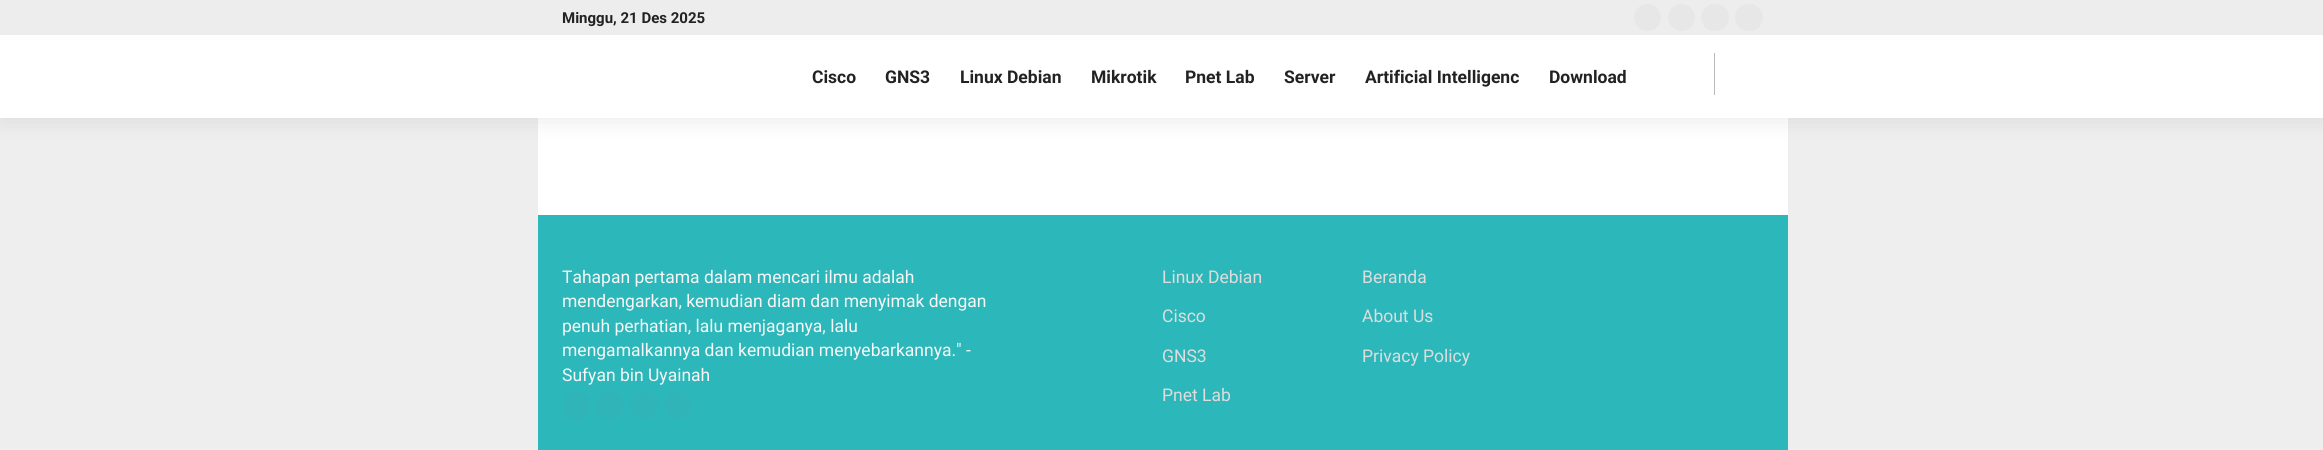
#include <cairo.h>
#include <math.h>
#include <stddef.h>

static cairo_t *ctx;

static void use_color(int r, int g, int b) {
    cairo_set_source_rgb(ctx, r / 255.0, g / 255.0, b / 255.0);
}

static void round_rect(double x, double y, double w, double h, double r) {
    cairo_new_sub_path(ctx);
    cairo_arc(ctx, x + w - r, y + h - r, r, 0, M_PI / 2);
    cairo_arc(ctx, x + r, y + h - r, r, M_PI / 2, M_PI);
    cairo_arc(ctx, x + r, y + r, r, M_PI, 1.5 * M_PI);
    cairo_arc(ctx, x + w - r, y + r, r, 1.5 * M_PI, 2 * M_PI);
    cairo_close_path(ctx);
}

static void shadow(double x, double y, double w, double h, double r, double blur, double alpha) {
    cairo_push_group_with_content(ctx, CAIRO_CONTENT_ALPHA);
    cairo_set_operator(ctx, CAIRO_OPERATOR_SOURCE);
    for (int i = 15; i >= -15 && fmin(w, h) + blur * i / 3 > 0; i -= 2) {
        double e = blur * i / 6;
        cairo_set_source_rgba(ctx, 0, 0, 0, alpha * erfc((i - 1) / 8.5) / 2);
        round_rect(x - e, y - e, w + 2 * e, h + 2 * e, fmax(0, fmin(r + e + blur * .6, fmin(w, h) / 2 + e)));
        cairo_fill(ctx);
    }
    cairo_pattern_t *soft = cairo_pop_group(ctx);
    cairo_mask(ctx, soft);
    cairo_pattern_destroy(soft);
}

int main(void) {
    cairo_surface_t *surface = cairo_image_surface_create(CAIRO_FORMAT_RGB24, 2323, 450);
    ctx = cairo_create(surface);
    cairo_font_options_t *options = cairo_font_options_create();
    cairo_font_options_set_hint_metrics(options, CAIRO_HINT_METRICS_OFF);
    cairo_font_options_set_hint_style(options, CAIRO_HINT_STYLE_NONE);
    cairo_set_font_options(ctx, options);
    cairo_set_miter_limit(ctx, 4);
    use_color(238, 238, 238);
    cairo_paint(ctx);
    use_color(255, 255, 255);
    cairo_rectangle(ctx, 538, 118, 1250, 97);
    cairo_fill(ctx);
    use_color(0, 0, 0);
    shadow(0, 0, 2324, 118, 0, 12.5, 0.1);
    use_color(255, 255, 255);
    cairo_rectangle(ctx, 0, 35, 2323, 83);
    cairo_fill(ctx);
    use_color(237, 237, 237);
    cairo_rectangle(ctx, 0, 0, 2323, 35);
    cairo_fill(ctx);
    cairo_select_font_face(ctx, "Roboto", CAIRO_FONT_SLANT_NORMAL, CAIRO_FONT_WEIGHT_BOLD);
    cairo_set_font_size(ctx, 15);
    use_color(34, 34, 34);
    cairo_move_to(ctx, 562, 23);
    cairo_show_text(ctx, "Minggu, 21 Des 2025");
    use_color(231, 231, 231);
    cairo_new_path(ctx);
    cairo_arc(ctx, 1647.5, 17.5, 13.5, 0, 2 * M_PI);
    cairo_fill(ctx);
    cairo_arc(ctx, 1681.5, 17.5, 13.5, 0, 2 * M_PI);
    cairo_fill(ctx);
    round_rect(1701, 4, 28, 27, 13.5);
    cairo_fill(ctx);
    round_rect(1735, 4, 28, 27, 13.5);
    cairo_fill(ctx);
    cairo_set_font_size(ctx, 17.5);
    use_color(34, 34, 34);
    cairo_move_to(ctx, 812, 83);
    cairo_show_text(ctx, "Cisco");
    cairo_move_to(ctx, 885, 83);
    cairo_show_text(ctx, "GNS3");
    cairo_move_to(ctx, 960, 83);
    cairo_show_text(ctx, "Linux Debian");
    cairo_move_to(ctx, 1091, 83);
    cairo_show_text(ctx, "Mikrotik");
    cairo_move_to(ctx, 1185, 83);
    cairo_show_text(ctx, "Pnet Lab");
    cairo_move_to(ctx, 1284, 83);
    cairo_show_text(ctx, "Server");
    cairo_move_to(ctx, 1365, 83);
    cairo_show_text(ctx, "Artificial Intelligenc");
    cairo_move_to(ctx, 1549, 83);
    cairo_show_text(ctx, "Download");
    use_color(187, 187, 187);
    cairo_rectangle(ctx, 1714, 53, 1, 42);
    cairo_fill(ctx);
    use_color(44, 183, 186);
    cairo_rectangle(ctx, 538, 215, 1250, 235);
    cairo_fill(ctx);
    cairo_select_font_face(ctx, "Roboto", CAIRO_FONT_SLANT_NORMAL, CAIRO_FONT_WEIGHT_NORMAL);
    use_color(247, 247, 247);
    cairo_move_to(ctx, 562, 283);
    cairo_show_text(ctx, "Tahapan pertama dalam mencari ilmu adalah");
    cairo_move_to(ctx, 562, 307);
    cairo_show_text(ctx, "mendengarkan, kemudian diam dan menyimak dengan");
    cairo_move_to(ctx, 562, 332);
    cairo_show_text(ctx, "penuh perhatian, lalu menjaganya, lalu");
    cairo_move_to(ctx, 562, 356);
    cairo_show_text(ctx, "mengamalkannya dan kemudian menyebarkannya.\" -");
    cairo_move_to(ctx, 562, 381);
    cairo_show_text(ctx, "Sufyan bin Uyainah");
    use_color(48, 180, 183);
    round_rect(563, 391, 27, 28, 13.5);
    cairo_fill(ctx);
    cairo_arc(ctx, 610, 405, 14, 0, 2 * M_PI);
    cairo_fill(ctx);
    cairo_arc(ctx, 644, 405, 14, 0, 2 * M_PI);
    cairo_fill(ctx);
    round_rect(664, 391, 27, 28, 13.5);
    cairo_fill(ctx);
    use_color(221, 221, 221);
    cairo_move_to(ctx, 1162, 283);
    cairo_show_text(ctx, "Linux Debian");
    cairo_move_to(ctx, 1162, 322);
    cairo_show_text(ctx, "Cisco");
    cairo_move_to(ctx, 1162, 362);
    cairo_show_text(ctx, "GNS3");
    cairo_move_to(ctx, 1162, 401);
    cairo_show_text(ctx, "Pnet Lab");
    cairo_move_to(ctx, 1362, 283);
    cairo_show_text(ctx, "Beranda");
    cairo_move_to(ctx, 1362, 322);
    cairo_show_text(ctx, "About Us");
    cairo_move_to(ctx, 1362, 362);
    cairo_show_text(ctx, "Privacy Policy");
    cairo_surface_write_to_png(surface, "result.png");
    cairo_font_options_destroy(options);
    cairo_destroy(ctx);
    cairo_surface_destroy(surface);
    return 0;
}
